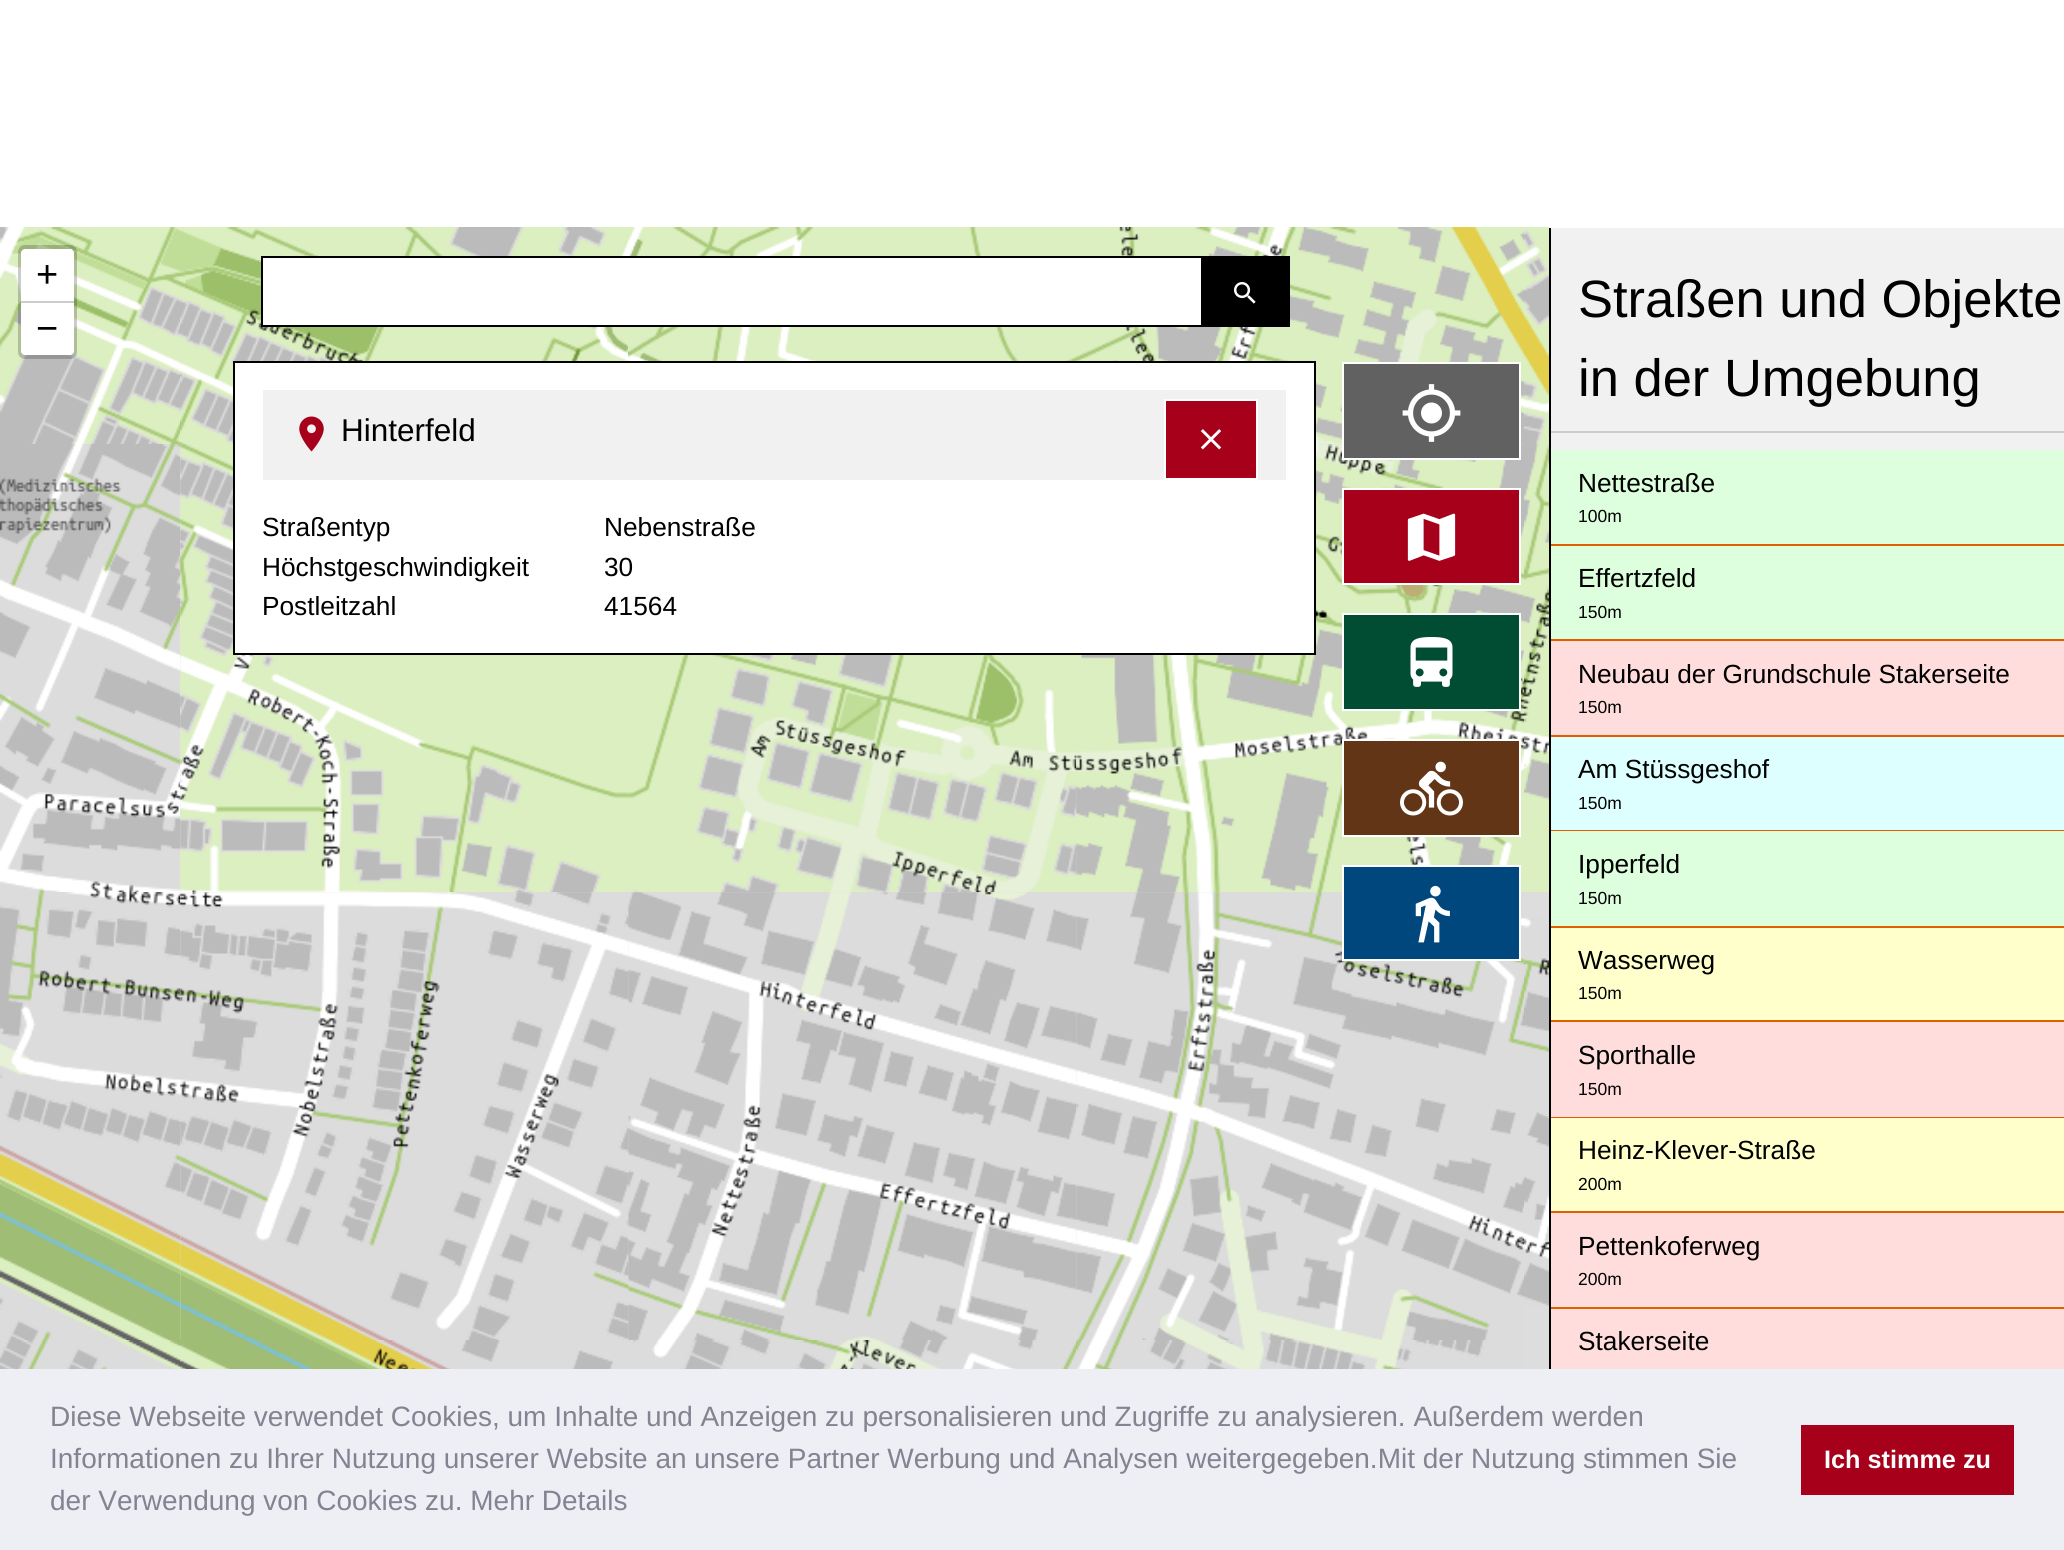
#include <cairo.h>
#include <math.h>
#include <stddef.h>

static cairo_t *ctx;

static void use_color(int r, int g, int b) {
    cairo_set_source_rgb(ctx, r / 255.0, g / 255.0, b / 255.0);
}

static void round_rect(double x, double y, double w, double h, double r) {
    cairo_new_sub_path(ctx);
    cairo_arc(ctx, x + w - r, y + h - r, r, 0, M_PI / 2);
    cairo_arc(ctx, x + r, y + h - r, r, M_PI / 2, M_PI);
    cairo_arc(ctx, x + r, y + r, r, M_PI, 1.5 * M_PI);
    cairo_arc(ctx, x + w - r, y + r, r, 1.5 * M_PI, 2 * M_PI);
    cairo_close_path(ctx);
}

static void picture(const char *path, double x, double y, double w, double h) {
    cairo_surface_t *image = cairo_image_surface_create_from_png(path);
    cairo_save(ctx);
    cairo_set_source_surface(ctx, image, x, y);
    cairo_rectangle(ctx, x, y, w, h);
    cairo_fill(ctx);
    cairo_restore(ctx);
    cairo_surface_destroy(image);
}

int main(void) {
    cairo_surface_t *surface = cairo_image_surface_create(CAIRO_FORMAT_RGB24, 2064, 1550);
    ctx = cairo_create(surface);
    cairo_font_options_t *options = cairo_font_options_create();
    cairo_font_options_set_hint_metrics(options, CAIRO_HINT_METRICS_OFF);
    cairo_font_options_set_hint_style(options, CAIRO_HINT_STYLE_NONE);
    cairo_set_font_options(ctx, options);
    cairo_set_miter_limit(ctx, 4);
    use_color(255, 255, 255);
    cairo_paint(ctx);
    use_color(221, 221, 221);
    cairo_rectangle(ctx, 180, 444, 1369, 925);
    cairo_fill(ctx);
    picture("img1.png", 0, 227, 180, 217);
    picture("img2.png", 180, 227, 448, 217);
    picture("img3.png", 628, 227, 448, 134);
    picture("img4.png", 1076, 227, 448, 217);
    picture("img5.png", 1524, 227, 25, 217);
    picture("img6.png", 0, 444, 180, 448);
    picture("img8.png", 628, 655, 449, 238);
    picture("img13.png", 628, 892, 449, 448);
    picture("img7.png", 180, 444, 449, 449);
    picture("img9.png", 1076, 444, 449, 449);
    picture("img10.png", 1524, 444, 25, 448);
    picture("img11.png", 0, 892, 180, 448);
    picture("img12.png", 180, 892, 449, 448);
    picture("img14.png", 1076, 892, 449, 449);
    picture("img15.png", 1524, 918, 25, 388);
    picture("img16.png", 0, 1340, 180, 29);
    picture("img17.png", 180, 1340, 448, 29);
    picture("img18.png", 628, 1340, 448, 29);
    picture("img19.png", 1076, 1340, 448, 29);
    round_rect(20, 247, 55, 110, 5);
    cairo_set_source_rgba(ctx, 0, 0, 0, 0.2);
    cairo_set_line_width(ctx, 4);
    cairo_stroke(ctx);
    use_color(255, 255, 255);
    cairo_new_path(ctx);
    cairo_move_to(ctx, 25, 249);
    cairo_line_to(ctx, 70, 249);
    cairo_curve_to(ctx, 72, 249, 74, 251, 74, 253);
    cairo_line_to(ctx, 74, 303);
    cairo_line_to(ctx, 21, 303);
    cairo_line_to(ctx, 21, 253);
    cairo_curve_to(ctx, 21, 251, 23, 249, 25, 249);
    cairo_close_path(ctx);
    cairo_fill(ctx);
    use_color(204, 204, 204);
    cairo_rectangle(ctx, 21, 301, 53, 2);
    cairo_fill(ctx);
    cairo_select_font_face(ctx, "Liberation Sans", CAIRO_FONT_SLANT_NORMAL, CAIRO_FONT_WEIGHT_NORMAL);
    cairo_set_font_size(ctx, 38);
    use_color(0, 0, 0);
    cairo_move_to(ctx, 36, 287);
    cairo_show_text(ctx, "+");
    use_color(255, 255, 255);
    cairo_new_path(ctx);
    cairo_move_to(ctx, 21, 303);
    cairo_line_to(ctx, 74, 303);
    cairo_line_to(ctx, 74, 351);
    cairo_curve_to(ctx, 74, 353, 72, 355, 70, 355);
    cairo_line_to(ctx, 25, 355);
    cairo_curve_to(ctx, 23, 355, 21, 353, 21, 351);
    cairo_close_path(ctx);
    cairo_fill(ctx);
    use_color(0, 0, 0);
    cairo_move_to(ctx, 36, 341);
    cairo_show_text(ctx, "−");
    use_color(255, 255, 255);
    cairo_rectangle(ctx, 263, 258, 938, 67);
    cairo_fill(ctx);
    use_color(0, 0, 0);
    cairo_rectangle(ctx, 1201, 256, 89, 71);
    cairo_fill(ctx);
    cairo_save(ctx);
    cairo_rectangle(ctx, 261, 256, 940, 71);
    cairo_clip(ctx);
    cairo_rectangle(ctx, 262, 257, 969, 69);
    cairo_set_line_width(ctx, 2);
    cairo_stroke(ctx);
    cairo_restore(ctx);
    picture("img20.png", 1234, 282, 22, 22);
    use_color(255, 255, 255);
    cairo_rectangle(ctx, 234, 362, 1081, 292);
    cairo_fill_preserve(ctx);
    use_color(0, 0, 0);
    cairo_set_line_width(ctx, 2);
    cairo_stroke(ctx);
    use_color(241, 241, 241);
    cairo_rectangle(ctx, 263, 390, 1023, 90);
    cairo_fill(ctx);
    picture("img21.png", 299, 416, 25, 36);
    cairo_set_font_size(ctx, 31.5);
    use_color(0, 0, 0);
    cairo_move_to(ctx, 341, 441);
    cairo_show_text(ctx, "Hinterfeld");
    use_color(166, 0, 26);
    cairo_rectangle(ctx, 1165, 400, 92, 79);
    cairo_fill_preserve(ctx);
    use_color(255, 255, 255);
    cairo_stroke(ctx);
    picture("img22.png", 1200, 429, 22, 21);
    cairo_set_font_size(ctx, 26.25);
    use_color(0, 0, 0);
    cairo_move_to(ctx, 262, 536);
    cairo_show_text(ctx, "Straßentyp");
    cairo_move_to(ctx, 604, 536);
    cairo_show_text(ctx, "Nebenstraße");
    cairo_move_to(ctx, 262, 576);
    cairo_show_text(ctx, "Höchstgeschwindigkeit");
    cairo_move_to(ctx, 604, 576);
    cairo_show_text(ctx, "30");
    cairo_move_to(ctx, 262, 615);
    cairo_show_text(ctx, "Postleitzahl");
    cairo_move_to(ctx, 604, 615);
    cairo_show_text(ctx, "41564");
    use_color(97, 97, 97);
    cairo_rectangle(ctx, 1343, 363, 177, 96);
    cairo_fill_preserve(ctx);
    use_color(255, 255, 255);
    cairo_stroke(ctx);
    picture("img23.png", 1402, 384, 59, 58);
    use_color(166, 0, 26);
    cairo_rectangle(ctx, 1343, 489, 177, 95);
    cairo_fill_preserve(ctx);
    use_color(255, 255, 255);
    cairo_stroke(ctx);
    picture("img24.png", 1407, 513, 49, 48);
    use_color(0, 77, 51);
    cairo_rectangle(ctx, 1343, 614, 177, 96);
    cairo_fill_preserve(ctx);
    use_color(255, 255, 255);
    cairo_stroke(ctx);
    picture("img25.png", 1410, 637, 43, 50);
    use_color(99, 53, 23);
    cairo_rectangle(ctx, 1343, 740, 177, 96);
    cairo_fill_preserve(ctx);
    use_color(255, 255, 255);
    cairo_stroke(ctx);
    picture("img26.png", 1400, 761, 63, 55);
    use_color(0, 71, 126);
    cairo_rectangle(ctx, 1343, 866, 177, 94);
    cairo_fill_preserve(ctx);
    use_color(255, 255, 255);
    cairo_stroke(ctx);
    picture("img27.png", 1415, 885, 35, 58);
    use_color(241, 241, 241);
    cairo_rectangle(ctx, 1551, 228, 513, 222);
    cairo_fill(ctx);
    use_color(0, 0, 0);
    cairo_rectangle(ctx, 1549, 228, 2, 1141);
    cairo_fill(ctx);
    use_color(204, 204, 204);
    cairo_rectangle(ctx, 1551, 431, 513, 2);
    cairo_fill(ctx);
    cairo_set_font_size(ctx, 52.5);
    use_color(0, 0, 0);
    cairo_move_to(ctx, 1578, 317);
    cairo_show_text(ctx, "Straßen und Objekte");
    cairo_move_to(ctx, 1578, 396);
    cairo_show_text(ctx, "in der Umgebung");
    use_color(221, 255, 221);
    cairo_rectangle(ctx, 1551, 450, 513, 94);
    cairo_fill(ctx);
    use_color(224, 96, 0);
    cairo_rectangle(ctx, 1551, 544, 513, 2);
    cairo_fill(ctx);
    cairo_set_font_size(ctx, 26.25);
    use_color(0, 0, 0);
    cairo_move_to(ctx, 1578, 492);
    cairo_show_text(ctx, "Nettestraße");
    cairo_set_font_size(ctx, 17.5);
    cairo_move_to(ctx, 1578, 522);
    cairo_show_text(ctx, "100m");
    use_color(221, 255, 221);
    cairo_rectangle(ctx, 1551, 546, 513, 93);
    cairo_fill(ctx);
    use_color(224, 96, 0);
    cairo_rectangle(ctx, 1551, 639, 513, 2);
    cairo_fill(ctx);
    cairo_set_font_size(ctx, 26.25);
    use_color(0, 0, 0);
    cairo_move_to(ctx, 1578, 587);
    cairo_show_text(ctx, "Effertzfeld");
    cairo_set_font_size(ctx, 17.5);
    cairo_move_to(ctx, 1578, 618);
    cairo_show_text(ctx, "150m");
    use_color(255, 221, 221);
    cairo_rectangle(ctx, 1551, 641, 513, 94);
    cairo_fill(ctx);
    use_color(224, 96, 0);
    cairo_rectangle(ctx, 1551, 735, 513, 2);
    cairo_fill(ctx);
    cairo_set_font_size(ctx, 26.25);
    use_color(0, 0, 0);
    cairo_move_to(ctx, 1578, 683);
    cairo_show_text(ctx, "Neubau der Grundschule Stakerseite");
    cairo_set_font_size(ctx, 17.5);
    cairo_move_to(ctx, 1578, 713);
    cairo_show_text(ctx, "150m");
    use_color(221, 255, 255);
    cairo_rectangle(ctx, 1551, 737, 513, 93);
    cairo_fill(ctx);
    use_color(224, 96, 0);
    cairo_rectangle(ctx, 1551, 830, 513, 1);
    cairo_fill(ctx);
    cairo_set_font_size(ctx, 26.25);
    use_color(0, 0, 0);
    cairo_move_to(ctx, 1578, 778);
    cairo_show_text(ctx, "Am Stüssgeshof");
    cairo_set_font_size(ctx, 17.5);
    cairo_move_to(ctx, 1578, 809);
    cairo_show_text(ctx, "150m");
    use_color(221, 255, 221);
    cairo_rectangle(ctx, 1551, 831, 513, 95);
    cairo_fill(ctx);
    use_color(224, 96, 0);
    cairo_rectangle(ctx, 1551, 926, 513, 2);
    cairo_fill(ctx);
    cairo_set_font_size(ctx, 26.25);
    use_color(0, 0, 0);
    cairo_move_to(ctx, 1578, 873);
    cairo_show_text(ctx, "Ipperfeld");
    cairo_set_font_size(ctx, 17.5);
    cairo_move_to(ctx, 1578, 904);
    cairo_show_text(ctx, "150m");
    use_color(255, 255, 204);
    cairo_rectangle(ctx, 1551, 928, 513, 92);
    cairo_fill(ctx);
    use_color(224, 96, 0);
    cairo_rectangle(ctx, 1551, 1020, 513, 2);
    cairo_fill(ctx);
    cairo_set_font_size(ctx, 26.25);
    use_color(0, 0, 0);
    cairo_move_to(ctx, 1578, 969);
    cairo_show_text(ctx, "Wasserweg");
    cairo_set_font_size(ctx, 17.5);
    cairo_move_to(ctx, 1578, 999);
    cairo_show_text(ctx, "150m");
    use_color(255, 221, 221);
    cairo_rectangle(ctx, 1551, 1022, 513, 95);
    cairo_fill(ctx);
    use_color(224, 96, 0);
    cairo_rectangle(ctx, 1551, 1117, 513, 1);
    cairo_fill(ctx);
    cairo_set_font_size(ctx, 26.25);
    use_color(0, 0, 0);
    cairo_move_to(ctx, 1578, 1064);
    cairo_show_text(ctx, "Sporthalle");
    cairo_set_font_size(ctx, 17.5);
    cairo_move_to(ctx, 1578, 1095);
    cairo_show_text(ctx, "150m");
    use_color(255, 255, 204);
    cairo_rectangle(ctx, 1551, 1118, 513, 93);
    cairo_fill(ctx);
    use_color(224, 96, 0);
    cairo_rectangle(ctx, 1551, 1211, 513, 2);
    cairo_fill(ctx);
    cairo_set_font_size(ctx, 26.25);
    use_color(0, 0, 0);
    cairo_move_to(ctx, 1578, 1159);
    cairo_show_text(ctx, "Heinz-Klever-Straße");
    cairo_set_font_size(ctx, 17.5);
    cairo_move_to(ctx, 1578, 1190);
    cairo_show_text(ctx, "200m");
    use_color(255, 221, 221);
    cairo_rectangle(ctx, 1551, 1213, 513, 94);
    cairo_fill(ctx);
    use_color(224, 96, 0);
    cairo_rectangle(ctx, 1551, 1307, 513, 2);
    cairo_fill(ctx);
    cairo_set_font_size(ctx, 26.25);
    use_color(0, 0, 0);
    cairo_move_to(ctx, 1578, 1255);
    cairo_show_text(ctx, "Pettenkoferweg");
    cairo_set_font_size(ctx, 17.5);
    cairo_move_to(ctx, 1578, 1285);
    cairo_show_text(ctx, "200m");
    use_color(255, 221, 221);
    cairo_rectangle(ctx, 1551, 1309, 513, 60);
    cairo_fill(ctx);
    cairo_set_font_size(ctx, 26.25);
    use_color(0, 0, 0);
    cairo_move_to(ctx, 1578, 1350);
    cairo_show_text(ctx, "Stakerseite");
    use_color(237, 239, 245);
    cairo_rectangle(ctx, 0, 1369, 2064, 181);
    cairo_fill(ctx);
    cairo_set_font_size(ctx, 28);
    use_color(131, 131, 145);
    cairo_move_to(ctx, 50, 1426);
    cairo_show_text(ctx, "Diese Webseite verwendet Cookies, um Inhalte und Anzeigen zu personalisieren und Zugriffe zu analysieren. Außerdem werden");
    cairo_move_to(ctx, 50, 1468);
    cairo_show_text(ctx, "Informationen zu Ihrer Nutzung unserer Website an unsere Partner Werbung und Analysen weitergegeben.Mit der Nutzung stimmen Sie");
    cairo_move_to(ctx, 50, 1510);
    cairo_show_text(ctx, "der Verwendung von Cookies zu. Mehr Details");
    use_color(166, 0, 26);
    cairo_rectangle(ctx, 1801, 1425, 213, 70);
    cairo_fill(ctx);
    cairo_select_font_face(ctx, "Liberation Sans", CAIRO_FONT_SLANT_NORMAL, CAIRO_FONT_WEIGHT_BOLD);
    cairo_set_font_size(ctx, 25.25);
    use_color(255, 255, 255);
    cairo_move_to(ctx, 1824, 1468);
    cairo_show_text(ctx, "Ich stimme zu");
    cairo_surface_write_to_png(surface, "result.png");
    cairo_font_options_destroy(options);
    cairo_destroy(ctx);
    cairo_surface_destroy(surface);
    return 0;
}
